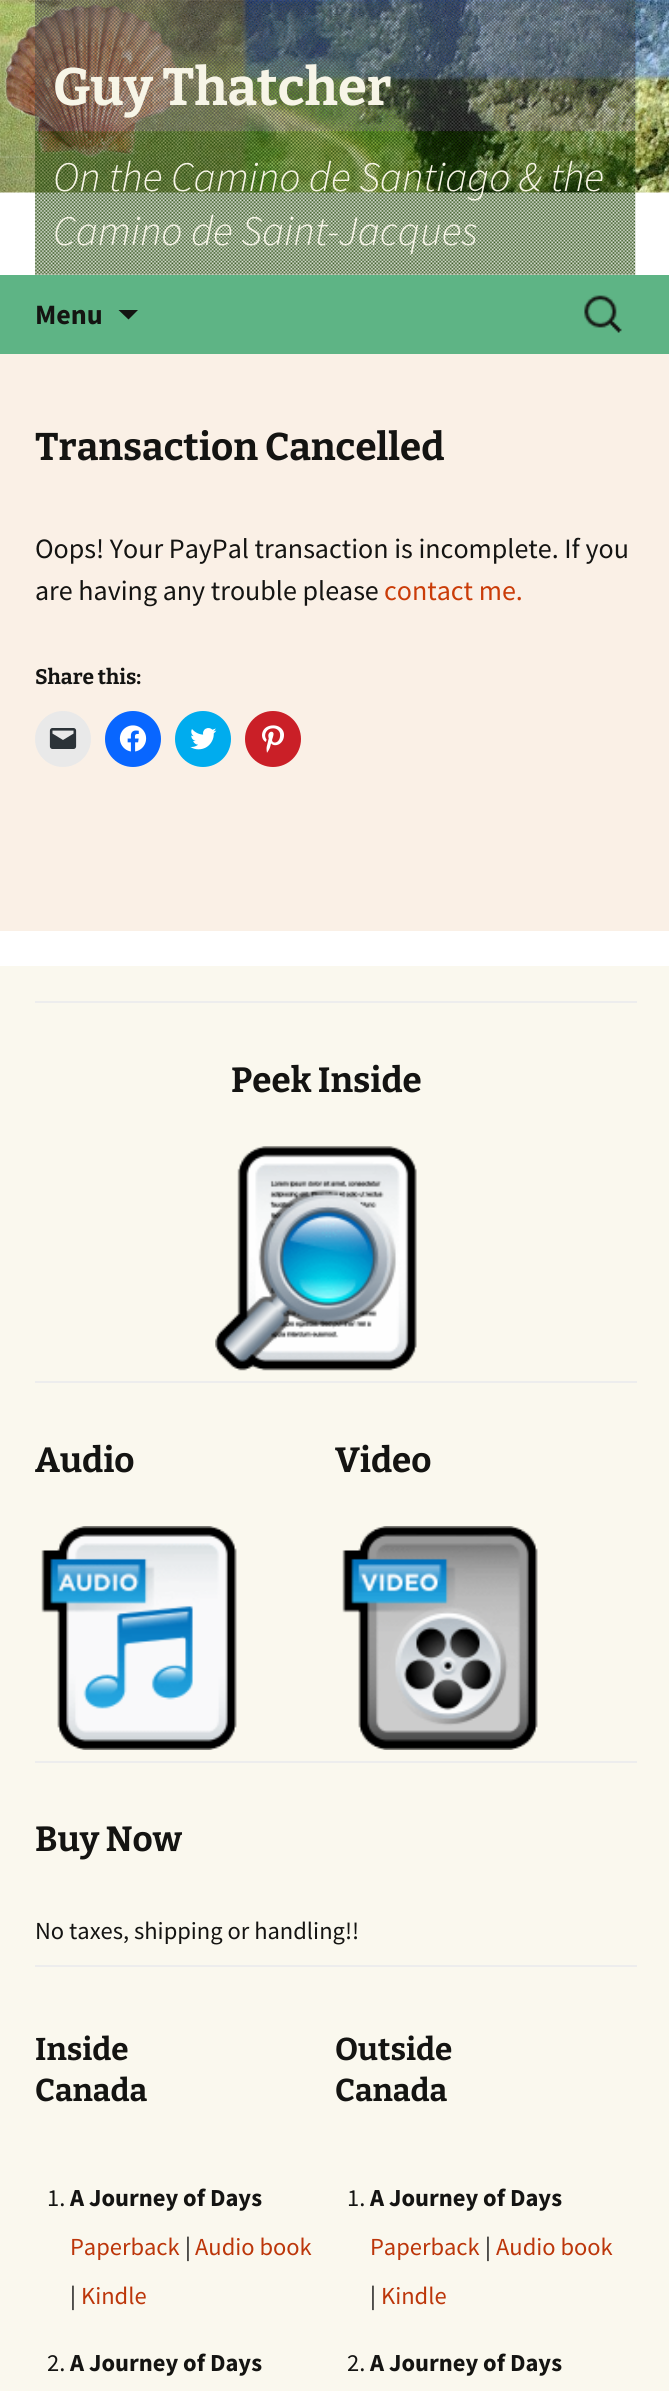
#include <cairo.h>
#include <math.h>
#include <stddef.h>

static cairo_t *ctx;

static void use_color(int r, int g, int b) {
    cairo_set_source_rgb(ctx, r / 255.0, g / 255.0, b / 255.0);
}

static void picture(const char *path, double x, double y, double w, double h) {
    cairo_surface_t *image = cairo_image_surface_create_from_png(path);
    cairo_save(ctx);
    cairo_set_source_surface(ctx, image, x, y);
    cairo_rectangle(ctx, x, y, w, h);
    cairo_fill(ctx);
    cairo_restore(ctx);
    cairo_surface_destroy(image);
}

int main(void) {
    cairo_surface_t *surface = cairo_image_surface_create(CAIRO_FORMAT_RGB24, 669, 2391);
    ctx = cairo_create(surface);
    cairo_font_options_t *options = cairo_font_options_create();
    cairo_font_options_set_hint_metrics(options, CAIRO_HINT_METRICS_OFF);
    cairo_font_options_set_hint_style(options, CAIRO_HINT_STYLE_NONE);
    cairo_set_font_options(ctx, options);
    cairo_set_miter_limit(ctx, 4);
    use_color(255, 255, 255);
    cairo_paint(ctx);
    picture("img1.png", 0, 0, 669, 193);
    picture("img2.png", 0, 0, 182, 158);
    picture("img3.png", 35, 0, 601, 132);
    cairo_select_font_face(ctx, "Bitter Thin", CAIRO_FONT_SLANT_NORMAL, CAIRO_FONT_WEIGHT_NORMAL);
    cairo_set_font_size(ctx, 52.5);
    use_color(247, 245, 231);
    cairo_move_to(ctx, 53, 105);
    cairo_show_text(ctx, "Guy Thatcher");
    picture("img4.png", 35, 131, 601, 144);
    cairo_select_font_face(ctx, "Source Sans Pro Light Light", CAIRO_FONT_SLANT_ITALIC, CAIRO_FONT_WEIGHT_NORMAL);
    cairo_set_font_size(ctx, 42);
    cairo_move_to(ctx, 53, 191);
    cairo_show_text(ctx, "On the Camino de Santiago & the");
    cairo_move_to(ctx, 53, 245);
    cairo_show_text(ctx, "Camino de Saint-Jacques");
    use_color(94, 180, 133);
    cairo_rectangle(ctx, 0, 275, 669, 79);
    cairo_fill(ctx);
    cairo_select_font_face(ctx, "Source Sans Pro", CAIRO_FONT_SLANT_NORMAL, CAIRO_FONT_WEIGHT_BOLD);
    cairo_set_font_size(ctx, 28);
    use_color(20, 20, 18);
    cairo_move_to(ctx, 35, 324);
    cairo_show_text(ctx, "Menu");
    cairo_new_path(ctx);
    cairo_move_to(ctx, 118.5, 310);
    cairo_line_to(ctx, 138, 310);
    cairo_line_to(ctx, 128.5, 319.5);
    cairo_close_path(ctx);
    cairo_fill(ctx);
    picture("img5.png", 584, 295, 38, 38);
    use_color(250, 240, 230);
    cairo_rectangle(ctx, 0, 354, 669, 577);
    cairo_fill(ctx);
    cairo_select_font_face(ctx, "Bitter Thin", CAIRO_FONT_SLANT_NORMAL, CAIRO_FONT_WEIGHT_NORMAL);
    cairo_set_font_size(ctx, 38.5);
    use_color(20, 20, 18);
    cairo_move_to(ctx, 35, 460);
    cairo_show_text(ctx, "Transaction Cancelled");
    cairo_select_font_face(ctx, "Source Sans Pro", CAIRO_FONT_SLANT_NORMAL, CAIRO_FONT_WEIGHT_NORMAL);
    cairo_set_font_size(ctx, 28);
    cairo_move_to(ctx, 35, 558);
    cairo_show_text(ctx, "Oops! Your PayPal transaction is incomplete. If you");
    cairo_move_to(ctx, 35, 600);
    cairo_show_text(ctx, "are having any trouble please");
    use_color(202, 60, 8);
    cairo_move_to(ctx, 384, 600);
    cairo_show_text(ctx, "contact me.");
    cairo_select_font_face(ctx, "Bitter Thin", CAIRO_FONT_SLANT_NORMAL, CAIRO_FONT_WEIGHT_NORMAL);
    cairo_set_font_size(ctx, 21);
    use_color(20, 20, 18);
    cairo_move_to(ctx, 35, 684);
    cairo_show_text(ctx, "Share this:");
    use_color(233, 233, 233);
    cairo_new_path(ctx);
    cairo_arc(ctx, 63, 739, 28, 0, 2 * M_PI);
    cairo_fill(ctx);
    picture("img6.png", 49, 728, 28, 21);
    use_color(8, 102, 255);
    cairo_arc(ctx, 133, 739, 28, 0, 2 * M_PI);
    cairo_fill(ctx);
    picture("img7.png", 119, 725, 28, 27);
    use_color(0, 172, 238);
    cairo_arc(ctx, 203, 739, 28, 0, 2 * M_PI);
    cairo_fill(ctx);
    picture("img8.png", 190, 728, 27, 22);
    use_color(202, 31, 39);
    cairo_arc(ctx, 273, 739, 28, 0, 2 * M_PI);
    cairo_fill(ctx);
    picture("img9.png", 262, 725, 22, 28);
    use_color(250, 248, 238);
    cairo_rectangle(ctx, 0, 966, 669, 1425);
    cairo_fill(ctx);
    use_color(237, 237, 237);
    cairo_rectangle(ctx, 35, 1001, 602, 2);
    cairo_fill(ctx);
    cairo_set_font_size(ctx, 35);
    use_color(20, 20, 18);
    cairo_move_to(ctx, 231, 1092);
    cairo_show_text(ctx, "Peek Inside");
    picture("img10.png", 215, 1146, 202, 225);
    cairo_move_to(ctx, 35, 1472);
    cairo_show_text(ctx, "Audio");
    picture("img11.png", 41, 1526, 196, 224);
    use_color(237, 237, 237);
    cairo_rectangle(ctx, 35, 1381, 602, 2);
    cairo_fill(ctx);
    use_color(20, 20, 18);
    cairo_move_to(ctx, 335, 1472);
    cairo_show_text(ctx, "Video");
    picture("img12.png", 342, 1526, 196, 224);
    use_color(237, 237, 237);
    cairo_rectangle(ctx, 35, 1761, 602, 2);
    cairo_fill(ctx);
    use_color(20, 20, 18);
    cairo_move_to(ctx, 35, 1851);
    cairo_show_text(ctx, "Buy Now");
    cairo_select_font_face(ctx, "Source Sans Pro", CAIRO_FONT_SLANT_NORMAL, CAIRO_FONT_WEIGHT_NORMAL);
    cairo_set_font_size(ctx, 24.5);
    cairo_move_to(ctx, 35, 1939);
    cairo_show_text(ctx, "No taxes, shipping or handling!!");
    cairo_select_font_face(ctx, "Bitter Thin", CAIRO_FONT_SLANT_NORMAL, CAIRO_FONT_WEIGHT_NORMAL);
    cairo_set_font_size(ctx, 31.5);
    cairo_move_to(ctx, 35, 2060);
    cairo_show_text(ctx, "Inside");
    cairo_move_to(ctx, 35, 2101);
    cairo_show_text(ctx, "Canada");
    cairo_select_font_face(ctx, "Source Sans Pro", CAIRO_FONT_SLANT_NORMAL, CAIRO_FONT_WEIGHT_NORMAL);
    cairo_set_font_size(ctx, 24.5);
    cairo_move_to(ctx, 47, 2206);
    cairo_show_text(ctx, "1.");
    cairo_select_font_face(ctx, "Source Sans Pro", CAIRO_FONT_SLANT_NORMAL, CAIRO_FONT_WEIGHT_BOLD);
    cairo_move_to(ctx, 70, 2206);
    cairo_show_text(ctx, "A Journey of Days");
    cairo_select_font_face(ctx, "Source Sans Pro", CAIRO_FONT_SLANT_NORMAL, CAIRO_FONT_WEIGHT_NORMAL);
    use_color(188, 54, 10);
    cairo_move_to(ctx, 70, 2255);
    cairo_show_text(ctx, "Paperback");
    use_color(20, 20, 18);
    cairo_move_to(ctx, 185, 2255);
    cairo_show_text(ctx, "|");
    use_color(188, 54, 10);
    cairo_move_to(ctx, 195, 2255);
    cairo_show_text(ctx, "Audio book");
    use_color(20, 20, 18);
    cairo_move_to(ctx, 70, 2304);
    cairo_show_text(ctx, "|");
    use_color(188, 54, 10);
    cairo_move_to(ctx, 81, 2304);
    cairo_show_text(ctx, "Kindle");
    use_color(20, 20, 18);
    cairo_move_to(ctx, 47, 2371);
    cairo_show_text(ctx, "2.");
    cairo_select_font_face(ctx, "Source Sans Pro", CAIRO_FONT_SLANT_NORMAL, CAIRO_FONT_WEIGHT_BOLD);
    cairo_move_to(ctx, 70, 2371);
    cairo_show_text(ctx, "A Journey of Days");
    use_color(237, 237, 237);
    cairo_rectangle(ctx, 35, 1965, 602, 2);
    cairo_fill(ctx);
    cairo_select_font_face(ctx, "Bitter Thin", CAIRO_FONT_SLANT_NORMAL, CAIRO_FONT_WEIGHT_NORMAL);
    cairo_set_font_size(ctx, 31.5);
    use_color(20, 20, 18);
    cairo_move_to(ctx, 335, 2060);
    cairo_show_text(ctx, "Outside");
    cairo_move_to(ctx, 335, 2101);
    cairo_show_text(ctx, "Canada");
    cairo_select_font_face(ctx, "Source Sans Pro", CAIRO_FONT_SLANT_NORMAL, CAIRO_FONT_WEIGHT_NORMAL);
    cairo_set_font_size(ctx, 24.5);
    cairo_move_to(ctx, 347, 2206);
    cairo_show_text(ctx, "1.");
    cairo_select_font_face(ctx, "Source Sans Pro", CAIRO_FONT_SLANT_NORMAL, CAIRO_FONT_WEIGHT_BOLD);
    cairo_move_to(ctx, 370, 2206);
    cairo_show_text(ctx, "A Journey of Days");
    cairo_select_font_face(ctx, "Source Sans Pro", CAIRO_FONT_SLANT_NORMAL, CAIRO_FONT_WEIGHT_NORMAL);
    use_color(188, 54, 10);
    cairo_move_to(ctx, 370, 2255);
    cairo_show_text(ctx, "Paperback");
    use_color(20, 20, 18);
    cairo_move_to(ctx, 485, 2255);
    cairo_show_text(ctx, "|");
    use_color(188, 54, 10);
    cairo_move_to(ctx, 496, 2255);
    cairo_show_text(ctx, "Audio book");
    use_color(20, 20, 18);
    cairo_move_to(ctx, 370, 2304);
    cairo_show_text(ctx, "|");
    use_color(188, 54, 10);
    cairo_move_to(ctx, 381, 2304);
    cairo_show_text(ctx, "Kindle");
    use_color(20, 20, 18);
    cairo_move_to(ctx, 347, 2371);
    cairo_show_text(ctx, "2.");
    cairo_select_font_face(ctx, "Source Sans Pro", CAIRO_FONT_SLANT_NORMAL, CAIRO_FONT_WEIGHT_BOLD);
    cairo_move_to(ctx, 370, 2371);
    cairo_show_text(ctx, "A Journey of Days");
    cairo_surface_write_to_png(surface, "result.png");
    cairo_font_options_destroy(options);
    cairo_destroy(ctx);
    cairo_surface_destroy(surface);
    return 0;
}
